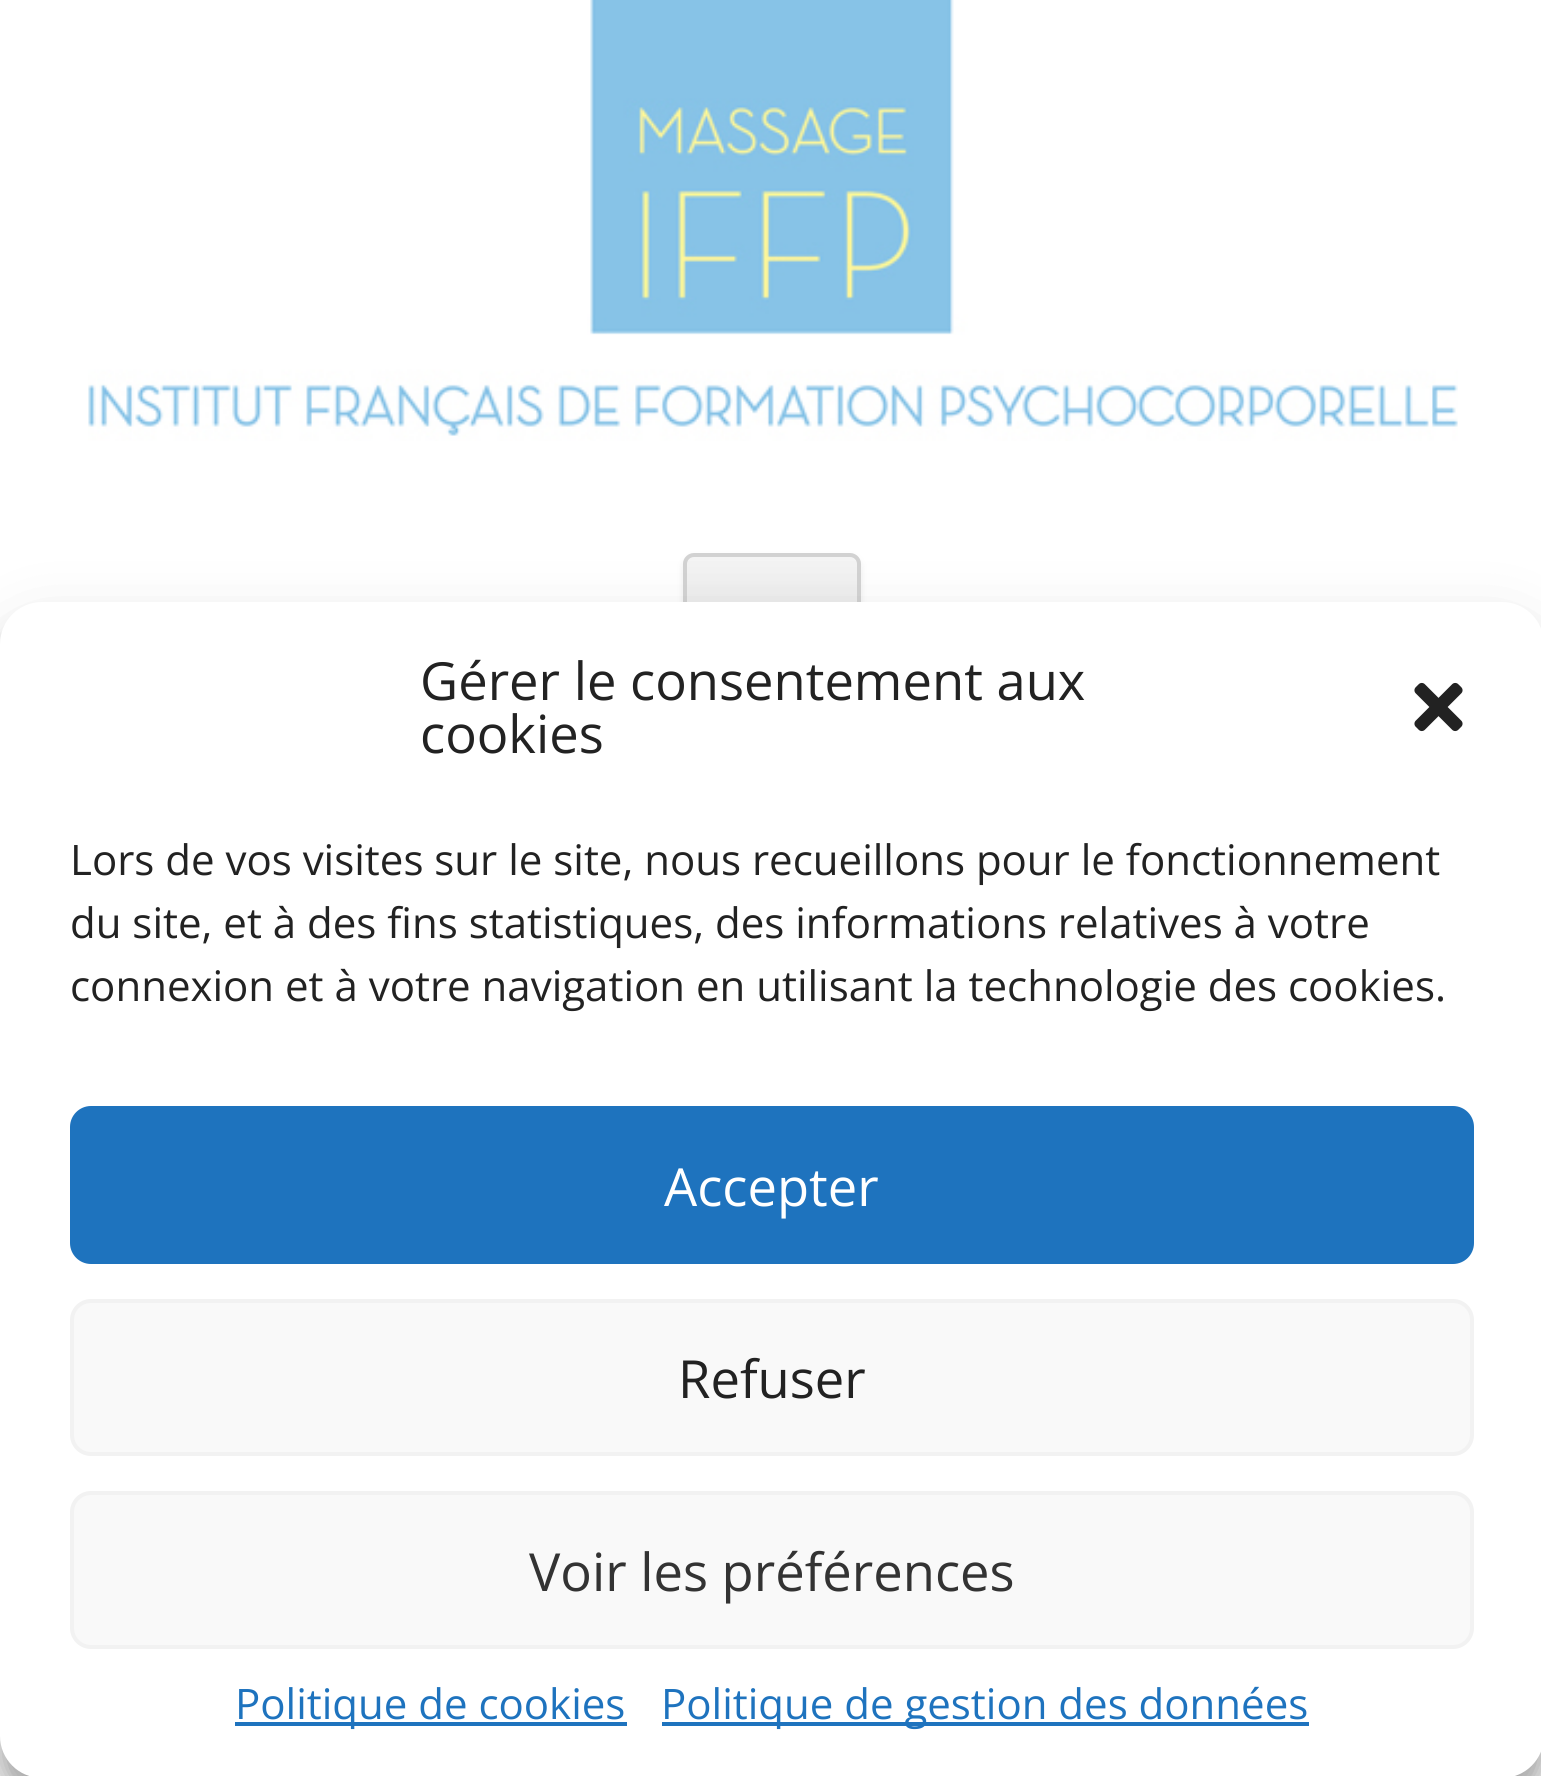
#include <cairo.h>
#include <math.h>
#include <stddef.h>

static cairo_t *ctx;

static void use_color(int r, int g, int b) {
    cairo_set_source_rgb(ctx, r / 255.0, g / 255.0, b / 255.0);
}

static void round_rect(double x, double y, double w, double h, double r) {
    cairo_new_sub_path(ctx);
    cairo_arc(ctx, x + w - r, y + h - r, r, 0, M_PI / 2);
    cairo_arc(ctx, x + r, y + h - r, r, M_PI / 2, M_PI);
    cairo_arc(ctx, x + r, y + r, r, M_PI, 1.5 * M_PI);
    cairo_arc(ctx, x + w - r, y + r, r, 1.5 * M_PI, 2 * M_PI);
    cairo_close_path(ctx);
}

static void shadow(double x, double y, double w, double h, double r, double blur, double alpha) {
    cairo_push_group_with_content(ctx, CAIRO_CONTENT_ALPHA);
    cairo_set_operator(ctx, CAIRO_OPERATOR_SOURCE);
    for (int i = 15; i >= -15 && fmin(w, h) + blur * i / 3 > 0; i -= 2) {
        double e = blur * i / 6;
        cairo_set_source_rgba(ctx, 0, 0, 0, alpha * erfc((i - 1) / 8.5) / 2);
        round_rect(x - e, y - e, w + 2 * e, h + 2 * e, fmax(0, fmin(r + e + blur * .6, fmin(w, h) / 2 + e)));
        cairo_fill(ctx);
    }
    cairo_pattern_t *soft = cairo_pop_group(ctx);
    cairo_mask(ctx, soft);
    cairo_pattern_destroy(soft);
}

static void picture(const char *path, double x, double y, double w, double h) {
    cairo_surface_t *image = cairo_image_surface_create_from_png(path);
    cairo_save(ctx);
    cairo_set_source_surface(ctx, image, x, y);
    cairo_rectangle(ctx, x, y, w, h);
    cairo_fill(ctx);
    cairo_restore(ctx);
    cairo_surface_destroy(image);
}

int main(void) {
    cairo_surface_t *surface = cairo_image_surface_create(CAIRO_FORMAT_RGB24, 1541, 1776);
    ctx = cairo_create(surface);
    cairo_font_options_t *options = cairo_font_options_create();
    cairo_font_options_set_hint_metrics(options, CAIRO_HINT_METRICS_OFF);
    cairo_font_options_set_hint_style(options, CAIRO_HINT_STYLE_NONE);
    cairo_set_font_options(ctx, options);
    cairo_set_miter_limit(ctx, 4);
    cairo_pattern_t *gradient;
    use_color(255, 255, 255);
    cairo_paint(ctx);
    picture("img1.png", 88, 0, 1370, 441);
    use_color(64, 64, 64);
    shadow(683, 557, 178, 101, 11, 3.5, 0.1);
    cairo_save(ctx);
    round_rect(683, 553, 178, 102, 11);
    cairo_clip(ctx);
    gradient = cairo_pattern_create_linear(772, 557, 772, 651);
    cairo_pattern_add_color_stop_rgba(gradient, 0, 0.957, 0.957, 0.957, 1);
    cairo_pattern_add_color_stop_rgba(gradient, 1, 0.902, 0.902, 0.902, 1);
    cairo_set_source(ctx, gradient);
    cairo_pattern_destroy(gradient);
    cairo_rectangle(ctx, 683, 557, 178, 45);
    cairo_fill(ctx);
    cairo_restore(ctx);
    round_rect(685, 555, 174, 98, 9);
    use_color(210, 210, 210);
    cairo_set_line_width(ctx, 4);
    cairo_stroke(ctx);
    use_color(0, 0, 0);
    shadow(0, 623, 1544, 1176, 42, 10.5, 0.23);
    shadow(0, 637, 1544, 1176, 42, 35, 0.19);
    use_color(255, 255, 255);
    round_rect(0, 602, 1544, 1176, 42);
    cairo_fill(ctx);
    cairo_select_font_face(ctx, "Open Sans", CAIRO_FONT_SLANT_NORMAL, CAIRO_FONT_WEIGHT_NORMAL);
    cairo_set_font_size(ctx, 52.5);
    use_color(34, 34, 34);
    cairo_move_to(ctx, 420, 700);
    cairo_show_text(ctx, "Gérer le consentement aux");
    cairo_move_to(ctx, 420, 753);
    cairo_show_text(ctx, "cookies");
    picture("img2.png", 1414, 682, 49, 50);
    cairo_set_font_size(ctx, 42);
    cairo_move_to(ctx, 70, 875);
    cairo_show_text(ctx, "Lors de vos visites sur le site, nous recueillons pour le fonctionnement");
    cairo_move_to(ctx, 70, 938);
    cairo_show_text(ctx, "du site, et à des fins statistiques, des informations relatives à votre");
    cairo_move_to(ctx, 70, 1001);
    cairo_show_text(ctx, "connexion et à votre navigation en utilisant la technologie des cookies.");
    use_color(30, 115, 190);
    round_rect(72, 1108, 1400, 154, 19);
    cairo_fill_preserve(ctx);
    cairo_stroke(ctx);
    cairo_set_font_size(ctx, 52.5);
    use_color(255, 255, 255);
    cairo_move_to(ctx, 664, 1206);
    cairo_show_text(ctx, "Accepter");
    use_color(249, 249, 249);
    round_rect(72, 1301, 1400, 153, 19);
    cairo_fill_preserve(ctx);
    use_color(242, 242, 242);
    cairo_stroke(ctx);
    use_color(34, 34, 34);
    cairo_move_to(ctx, 678, 1398);
    cairo_show_text(ctx, "Refuser");
    use_color(249, 249, 249);
    round_rect(72, 1493, 1400, 154, 19);
    cairo_fill_preserve(ctx);
    use_color(242, 242, 242);
    cairo_stroke(ctx);
    use_color(51, 51, 51);
    cairo_move_to(ctx, 529, 1591);
    cairo_show_text(ctx, "Voir les préférences");
    use_color(30, 115, 190);
    cairo_rectangle(ctx, 235, 1722, 392, 4);
    cairo_fill(ctx);
    cairo_set_font_size(ctx, 42);
    cairo_move_to(ctx, 235, 1719);
    cairo_show_text(ctx, "Politique de cookies");
    cairo_rectangle(ctx, 662, 1722, 647, 4);
    cairo_fill(ctx);
    cairo_move_to(ctx, 661, 1719);
    cairo_show_text(ctx, "Politique de gestion des données");
    cairo_surface_write_to_png(surface, "result.png");
    cairo_font_options_destroy(options);
    cairo_destroy(ctx);
    cairo_surface_destroy(surface);
    return 0;
}
